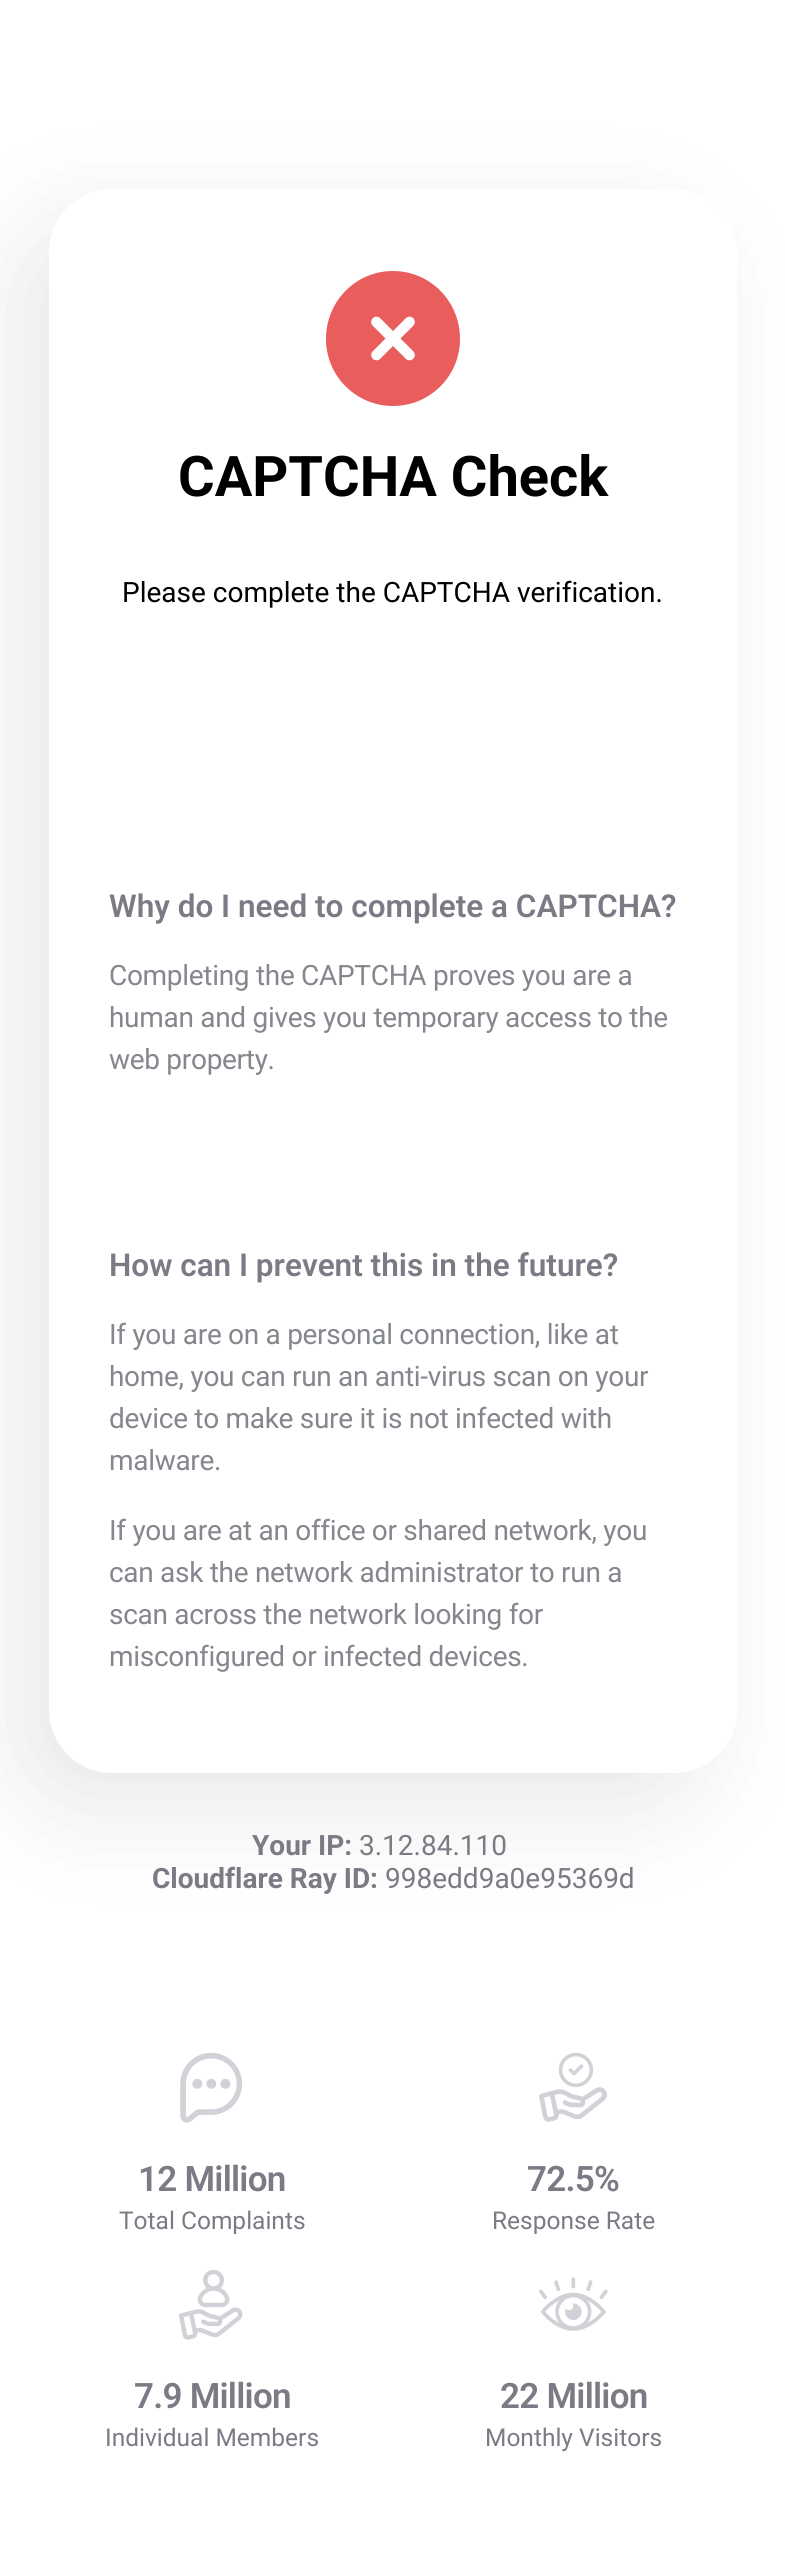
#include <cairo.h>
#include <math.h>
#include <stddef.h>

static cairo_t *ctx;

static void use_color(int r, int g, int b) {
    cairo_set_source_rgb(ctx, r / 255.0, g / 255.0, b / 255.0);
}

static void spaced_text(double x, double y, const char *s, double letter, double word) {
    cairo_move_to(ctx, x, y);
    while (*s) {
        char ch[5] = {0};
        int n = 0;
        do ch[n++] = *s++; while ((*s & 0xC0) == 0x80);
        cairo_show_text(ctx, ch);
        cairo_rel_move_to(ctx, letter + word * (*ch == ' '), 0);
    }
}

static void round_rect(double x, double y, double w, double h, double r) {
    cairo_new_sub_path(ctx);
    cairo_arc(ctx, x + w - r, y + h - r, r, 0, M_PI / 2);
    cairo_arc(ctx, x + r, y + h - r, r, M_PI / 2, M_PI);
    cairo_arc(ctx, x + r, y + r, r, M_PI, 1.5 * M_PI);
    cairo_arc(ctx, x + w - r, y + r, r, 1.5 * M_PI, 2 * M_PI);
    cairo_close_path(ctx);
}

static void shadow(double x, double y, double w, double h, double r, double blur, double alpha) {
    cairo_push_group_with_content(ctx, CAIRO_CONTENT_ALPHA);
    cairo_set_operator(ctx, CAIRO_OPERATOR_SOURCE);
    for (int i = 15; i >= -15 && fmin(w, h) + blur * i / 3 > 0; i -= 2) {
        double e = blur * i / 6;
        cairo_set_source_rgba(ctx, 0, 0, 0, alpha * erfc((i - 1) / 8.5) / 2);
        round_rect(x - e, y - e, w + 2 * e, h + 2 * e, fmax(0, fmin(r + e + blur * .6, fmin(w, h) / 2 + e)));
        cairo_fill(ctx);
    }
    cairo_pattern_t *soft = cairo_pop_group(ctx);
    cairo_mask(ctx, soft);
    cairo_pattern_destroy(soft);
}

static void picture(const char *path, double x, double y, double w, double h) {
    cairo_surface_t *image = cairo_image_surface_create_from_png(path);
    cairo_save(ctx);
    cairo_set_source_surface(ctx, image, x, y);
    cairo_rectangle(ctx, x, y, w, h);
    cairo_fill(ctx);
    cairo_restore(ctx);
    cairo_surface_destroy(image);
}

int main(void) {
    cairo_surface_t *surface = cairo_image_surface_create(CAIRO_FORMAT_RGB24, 785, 2560);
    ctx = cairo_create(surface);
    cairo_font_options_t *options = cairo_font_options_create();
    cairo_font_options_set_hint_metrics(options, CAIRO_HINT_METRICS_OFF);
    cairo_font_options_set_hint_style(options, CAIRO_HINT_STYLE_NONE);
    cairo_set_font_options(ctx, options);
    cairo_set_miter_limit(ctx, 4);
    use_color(255, 255, 255);
    cairo_paint(ctx);
    use_color(209, 210, 215);
    shadow(14, 224, 688, 1584, 63, 52.5, 0.5);
    use_color(255, 255, 255);
    round_rect(49, 189, 688, 1584, 63);
    cairo_fill(ctx);
    use_color(233, 93, 93);
    cairo_new_path(ctx);
    cairo_move_to(ctx, 393, 406);
    cairo_curve_to(ctx, 430, 406, 460, 376, 460, 339);
    cairo_curve_to(ctx, 460, 301, 430, 271, 393, 271);
    cairo_curve_to(ctx, 356, 271, 326, 301, 326, 339);
    cairo_curve_to(ctx, 326, 376, 356, 406, 393, 406);
    cairo_close_path(ctx);
    cairo_fill(ctx);
    cairo_new_path(ctx);
    cairo_move_to(ctx, 376.5, 355);
    cairo_line_to(ctx, 409.5, 322);
    cairo_move_to(ctx, 409.5, 355);
    cairo_line_to(ctx, 376.5, 322);
    use_color(255, 255, 255);
    cairo_set_line_width(ctx, 10.6);
    cairo_set_line_cap(ctx, CAIRO_LINE_CAP_ROUND);
    cairo_stroke(ctx);
    cairo_select_font_face(ctx, "Roboto", CAIRO_FONT_SLANT_NORMAL, CAIRO_FONT_WEIGHT_BOLD);
    cairo_set_font_size(ctx, 56);
    use_color(0, 0, 0);
    cairo_move_to(ctx, 178, 496);
    cairo_show_text(ctx, "CAPTCHA Check");
    cairo_select_font_face(ctx, "Roboto", CAIRO_FONT_SLANT_NORMAL, CAIRO_FONT_WEIGHT_NORMAL);
    cairo_set_font_size(ctx, 28);
    cairo_move_to(ctx, 122, 602);
    cairo_show_text(ctx, "Please complete the CAPTCHA verification.");
    cairo_select_font_face(ctx, "Roboto SemiBold", CAIRO_FONT_SLANT_NORMAL, CAIRO_FONT_WEIGHT_NORMAL);
    cairo_set_font_size(ctx, 31.5);
    use_color(124, 123, 133);
    cairo_move_to(ctx, 109, 917);
    cairo_show_text(ctx, "Why do I need to complete a CAPTCHA?");
    cairo_select_font_face(ctx, "Roboto", CAIRO_FONT_SLANT_NORMAL, CAIRO_FONT_WEIGHT_NORMAL);
    cairo_set_font_size(ctx, 28);
    use_color(133, 135, 142);
    spaced_text(109, 985, "Completing the CAPTCHA proves you are a", -0.3, 0);
    spaced_text(109, 1027, "human and gives you temporary access to the", -0.3, 0);
    spaced_text(109, 1069, "web property.", -0.3, 0);
    cairo_select_font_face(ctx, "Roboto SemiBold", CAIRO_FONT_SLANT_NORMAL, CAIRO_FONT_WEIGHT_NORMAL);
    cairo_set_font_size(ctx, 31.5);
    use_color(124, 123, 133);
    cairo_move_to(ctx, 109, 1276);
    cairo_show_text(ctx, "How can I prevent this in the future?");
    cairo_select_font_face(ctx, "Roboto", CAIRO_FONT_SLANT_NORMAL, CAIRO_FONT_WEIGHT_NORMAL);
    cairo_set_font_size(ctx, 28);
    use_color(133, 135, 142);
    spaced_text(109, 1344, "If you are on a personal connection, like at", -0.3, 0);
    spaced_text(109, 1386, "home, you can run an anti-virus scan on your", -0.3, 0);
    spaced_text(109, 1428, "device to make sure it is not infected with", -0.3, 0);
    spaced_text(109, 1470, "malware.", -0.3, 0);
    spaced_text(109, 1540, "If you are at an office or shared network, you", -0.3, 0);
    spaced_text(109, 1582, "can ask the network administrator to run a", -0.3, 0);
    spaced_text(109, 1624, "scan across the network looking for", -0.3, 0);
    spaced_text(109, 1666, "misconfigured or infected devices.", -0.3, 0);
    cairo_select_font_face(ctx, "Roboto", CAIRO_FONT_SLANT_NORMAL, CAIRO_FONT_WEIGHT_BOLD);
    use_color(124, 123, 133);
    cairo_move_to(ctx, 252, 1855);
    cairo_show_text(ctx, "Your IP:");
    cairo_select_font_face(ctx, "Roboto", CAIRO_FONT_SLANT_NORMAL, CAIRO_FONT_WEIGHT_NORMAL);
    cairo_move_to(ctx, 359, 1855);
    cairo_show_text(ctx, "3.12.84.110");
    cairo_select_font_face(ctx, "Roboto", CAIRO_FONT_SLANT_NORMAL, CAIRO_FONT_WEIGHT_BOLD);
    cairo_move_to(ctx, 152, 1888);
    cairo_show_text(ctx, "Cloudflare Ray ID:");
    cairo_select_font_face(ctx, "Roboto", CAIRO_FONT_SLANT_NORMAL, CAIRO_FONT_WEIGHT_NORMAL);
    cairo_move_to(ctx, 385, 1888);
    cairo_show_text(ctx, "998edd9a0e95369d");
    picture("img1.png", 180, 2053, 63, 70);
    cairo_select_font_face(ctx, "Roboto SemiBold", CAIRO_FONT_SLANT_NORMAL, CAIRO_FONT_WEIGHT_NORMAL);
    cairo_set_font_size(ctx, 35);
    spaced_text(138, 2191, "12 Million", -0.75, 0);
    cairo_select_font_face(ctx, "Roboto", CAIRO_FONT_SLANT_NORMAL, CAIRO_FONT_WEIGHT_NORMAL);
    cairo_set_font_size(ctx, 24.5);
    cairo_move_to(ctx, 119, 2229);
    cairo_show_text(ctx, "Total Complaints");
    picture("img2.png", 539, 2053, 68, 69);
    cairo_select_font_face(ctx, "Roboto SemiBold", CAIRO_FONT_SLANT_NORMAL, CAIRO_FONT_WEIGHT_NORMAL);
    cairo_set_font_size(ctx, 35);
    spaced_text(527, 2191, "72.5%", -0.75, 0);
    cairo_select_font_face(ctx, "Roboto", CAIRO_FONT_SLANT_NORMAL, CAIRO_FONT_WEIGHT_NORMAL);
    cairo_set_font_size(ctx, 24.5);
    cairo_move_to(ctx, 492, 2229);
    cairo_show_text(ctx, "Response Rate");
    picture("img3.png", 179, 2270, 64, 70);
    cairo_select_font_face(ctx, "Roboto SemiBold", CAIRO_FONT_SLANT_NORMAL, CAIRO_FONT_WEIGHT_NORMAL);
    cairo_set_font_size(ctx, 35);
    spaced_text(134, 2408, "7.9 Million", -0.75, 0);
    cairo_select_font_face(ctx, "Roboto", CAIRO_FONT_SLANT_NORMAL, CAIRO_FONT_WEIGHT_NORMAL);
    cairo_set_font_size(ctx, 24.5);
    cairo_move_to(ctx, 105, 2446);
    cairo_show_text(ctx, "Individual Members");
    picture("img4.png", 539, 2277, 69, 54);
    cairo_select_font_face(ctx, "Roboto SemiBold", CAIRO_FONT_SLANT_NORMAL, CAIRO_FONT_WEIGHT_NORMAL);
    cairo_set_font_size(ctx, 35);
    spaced_text(500, 2408, "22 Million", -0.75, 0);
    cairo_select_font_face(ctx, "Roboto", CAIRO_FONT_SLANT_NORMAL, CAIRO_FONT_WEIGHT_NORMAL);
    cairo_set_font_size(ctx, 24.5);
    cairo_move_to(ctx, 485, 2446);
    cairo_show_text(ctx, "Monthly Visitors");
    cairo_surface_write_to_png(surface, "result.png");
    cairo_font_options_destroy(options);
    cairo_destroy(ctx);
    cairo_surface_destroy(surface);
    return 0;
}
